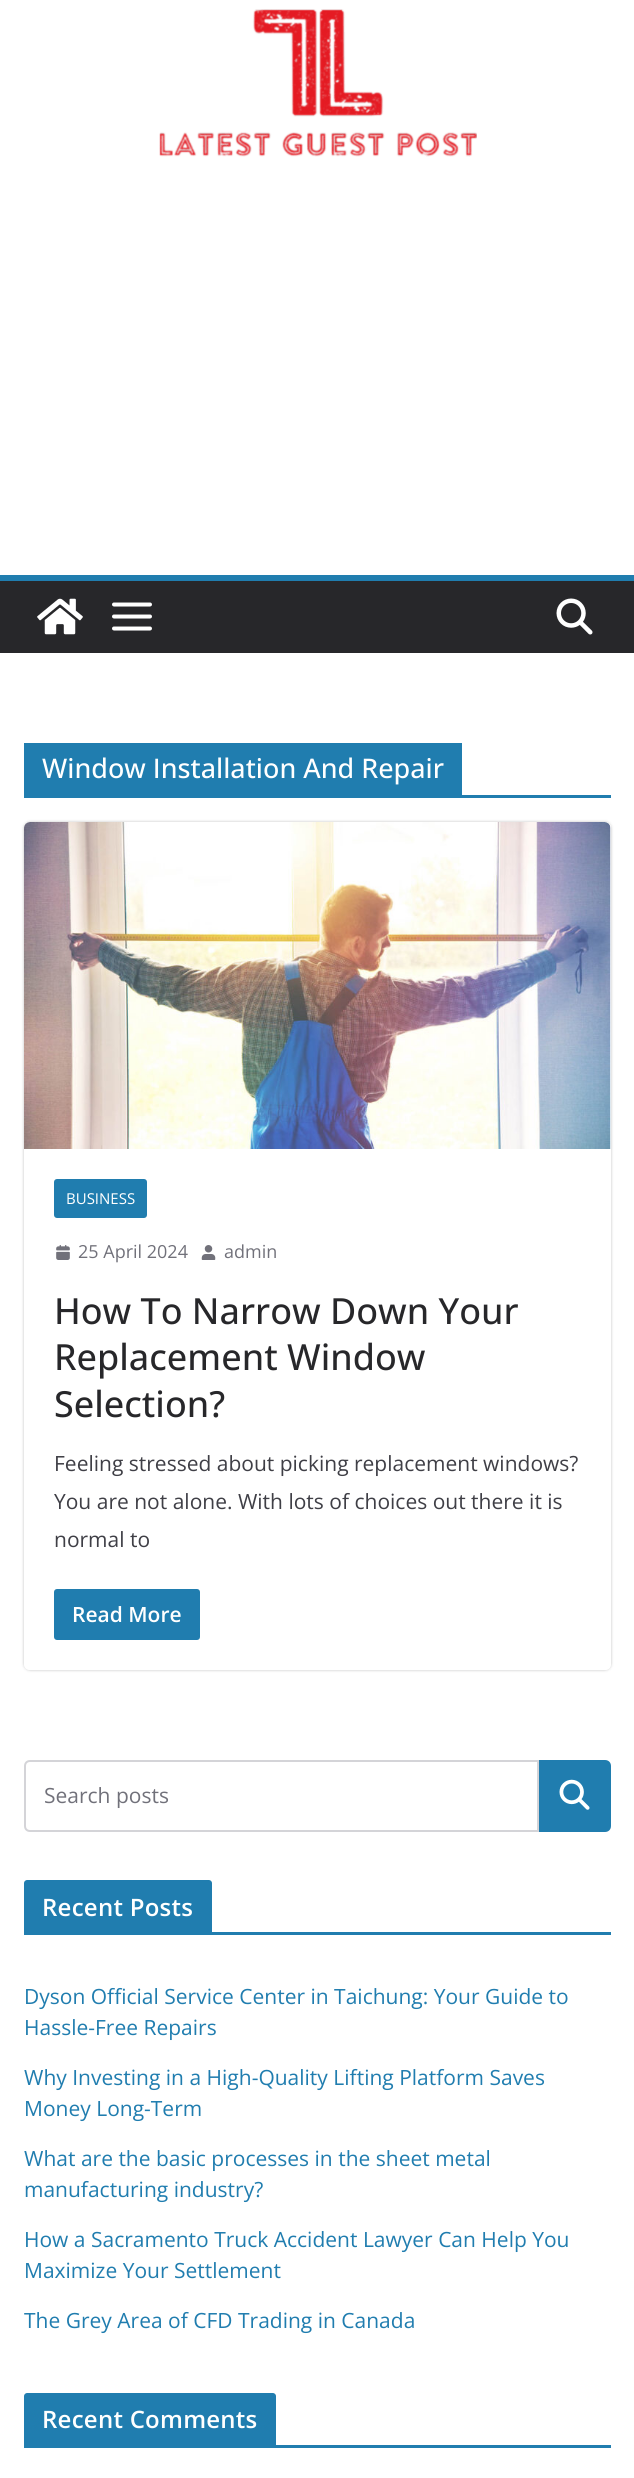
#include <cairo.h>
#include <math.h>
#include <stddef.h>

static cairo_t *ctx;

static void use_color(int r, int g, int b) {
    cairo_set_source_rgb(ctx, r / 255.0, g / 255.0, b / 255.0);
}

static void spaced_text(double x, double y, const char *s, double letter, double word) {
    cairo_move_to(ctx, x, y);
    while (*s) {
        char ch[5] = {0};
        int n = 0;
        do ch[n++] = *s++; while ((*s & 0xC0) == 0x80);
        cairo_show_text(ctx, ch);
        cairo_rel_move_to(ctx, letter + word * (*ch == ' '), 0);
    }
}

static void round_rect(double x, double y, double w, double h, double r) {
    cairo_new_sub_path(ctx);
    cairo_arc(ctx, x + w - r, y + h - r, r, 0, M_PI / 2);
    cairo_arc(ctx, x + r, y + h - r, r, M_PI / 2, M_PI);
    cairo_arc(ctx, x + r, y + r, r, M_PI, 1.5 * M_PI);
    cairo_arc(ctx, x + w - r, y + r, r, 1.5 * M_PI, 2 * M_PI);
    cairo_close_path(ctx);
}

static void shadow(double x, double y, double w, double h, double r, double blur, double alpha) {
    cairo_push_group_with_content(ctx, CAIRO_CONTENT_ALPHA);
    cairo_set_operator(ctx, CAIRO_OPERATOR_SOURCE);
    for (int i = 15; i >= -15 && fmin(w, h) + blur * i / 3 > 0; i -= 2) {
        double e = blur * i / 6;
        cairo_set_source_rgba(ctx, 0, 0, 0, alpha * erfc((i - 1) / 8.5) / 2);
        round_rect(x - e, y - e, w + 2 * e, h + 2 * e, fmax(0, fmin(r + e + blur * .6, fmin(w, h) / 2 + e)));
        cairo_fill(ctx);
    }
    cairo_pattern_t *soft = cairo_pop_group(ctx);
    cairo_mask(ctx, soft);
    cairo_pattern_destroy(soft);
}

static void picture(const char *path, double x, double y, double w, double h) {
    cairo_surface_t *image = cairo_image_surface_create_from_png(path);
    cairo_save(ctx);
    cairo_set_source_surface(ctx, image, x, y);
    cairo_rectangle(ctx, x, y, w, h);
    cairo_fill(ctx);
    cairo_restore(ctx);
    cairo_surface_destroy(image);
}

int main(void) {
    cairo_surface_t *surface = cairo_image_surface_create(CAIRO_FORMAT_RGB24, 634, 2478);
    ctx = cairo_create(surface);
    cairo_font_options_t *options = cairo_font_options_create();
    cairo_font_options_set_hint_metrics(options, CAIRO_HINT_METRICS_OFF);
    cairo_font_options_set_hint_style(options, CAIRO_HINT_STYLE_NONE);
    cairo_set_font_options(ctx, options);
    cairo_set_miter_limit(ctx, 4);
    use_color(255, 255, 255);
    cairo_paint(ctx);
    picture("img1.png", 159, 9, 318, 148);
    use_color(39, 39, 42);
    cairo_rectangle(ctx, 0, 581, 634, 72);
    cairo_fill(ctx);
    use_color(32, 125, 175);
    cairo_rectangle(ctx, 0, 575, 634, 6);
    cairo_fill(ctx);
    picture("img2.png", 37, 598, 46, 37);
    picture("img3.png", 112, 602, 40, 29);
    picture("img4.png", 556, 598, 37, 37);
    cairo_rectangle(ctx, 24, 795, 587, 3);
    cairo_fill(ctx);
    cairo_rectangle(ctx, 24, 743, 438, 52);
    cairo_fill(ctx);
    cairo_select_font_face(ctx, "Open Sans Medium", CAIRO_FONT_SLANT_NORMAL, CAIRO_FONT_WEIGHT_NORMAL);
    cairo_set_font_size(ctx, 27);
    use_color(255, 255, 255);
    cairo_move_to(ctx, 42, 778);
    cairo_show_text(ctx, "Window Installation And Repair");
    cairo_save(ctx);
    cairo_set_fill_rule(ctx, CAIRO_FILL_RULE_EVEN_ODD);
    cairo_new_path(ctx);
    cairo_move_to(ctx, 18, 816);
    cairo_line_to(ctx, 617, 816);
    cairo_line_to(ctx, 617, 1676);
    cairo_line_to(ctx, 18, 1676);
    cairo_close_path(ctx);
    cairo_move_to(ctx, 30, 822);
    cairo_line_to(ctx, 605, 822);
    cairo_curve_to(ctx, 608.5, 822, 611, 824.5, 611, 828);
    cairo_line_to(ctx, 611, 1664);
    cairo_curve_to(ctx, 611, 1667.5, 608.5, 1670, 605, 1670);
    cairo_line_to(ctx, 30, 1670);
    cairo_curve_to(ctx, 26.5, 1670, 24, 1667.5, 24, 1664);
    cairo_line_to(ctx, 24, 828);
    cairo_curve_to(ctx, 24, 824.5, 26.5, 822, 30, 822);
    cairo_close_path(ctx);
    cairo_clip(ctx);
    use_color(0, 0, 0);
    shadow(24, 822, 587, 848, 6, 1.5, 0.24);
    cairo_restore(ctx);
    picture("img5.png", 24, 822, 587, 327);
    use_color(32, 125, 175);
    round_rect(54, 1179, 93, 39, 3);
    cairo_fill(ctx);
    cairo_select_font_face(ctx, "Open Sans", CAIRO_FONT_SLANT_NORMAL, CAIRO_FONT_WEIGHT_NORMAL);
    cairo_set_font_size(ctx, 15);
    use_color(255, 255, 255);
    cairo_move_to(ctx, 66, 1204);
    cairo_show_text(ctx, "BUSINESS");
    picture("img6.png", 56, 1245, 14, 15);
    cairo_set_font_size(ctx, 18);
    use_color(113, 113, 122);
    cairo_move_to(ctx, 78, 1258);
    cairo_show_text(ctx, "25 April 2024");
    picture("img7.png", 201, 1245, 15, 15);
    cairo_move_to(ctx, 224, 1258);
    cairo_show_text(ctx, "admin");
    cairo_select_font_face(ctx, "Open Sans Medium", CAIRO_FONT_SLANT_NORMAL, CAIRO_FONT_WEIGHT_NORMAL);
    cairo_set_font_size(ctx, 36);
    use_color(39, 39, 42);
    cairo_move_to(ctx, 54, 1324);
    cairo_show_text(ctx, "How To Narrow Down Your");
    cairo_move_to(ctx, 54, 1370);
    cairo_show_text(ctx, "Replacement Window");
    cairo_move_to(ctx, 54, 1417);
    cairo_show_text(ctx, "Selection?");
    cairo_select_font_face(ctx, "Open Sans", CAIRO_FONT_SLANT_NORMAL, CAIRO_FONT_WEIGHT_NORMAL);
    cairo_set_font_size(ctx, 21);
    use_color(63, 63, 70);
    cairo_move_to(ctx, 54, 1471);
    cairo_show_text(ctx, "Feeling stressed about picking replacement windows?");
    cairo_move_to(ctx, 54, 1509);
    cairo_show_text(ctx, "You are not alone. With lots of choices out there it is");
    cairo_move_to(ctx, 54, 1547);
    cairo_show_text(ctx, "normal to");
    use_color(32, 125, 175);
    round_rect(54, 1589, 146, 51, 3);
    cairo_fill(ctx);
    cairo_select_font_face(ctx, "Open Sans SemiBold", CAIRO_FONT_SLANT_NORMAL, CAIRO_FONT_WEIGHT_NORMAL);
    use_color(255, 255, 255);
    cairo_move_to(ctx, 72, 1622);
    cairo_show_text(ctx, "Read More");
    cairo_new_path(ctx);
    cairo_move_to(ctx, 30, 1761);
    cairo_line_to(ctx, 538, 1761);
    cairo_line_to(ctx, 538, 1831);
    cairo_line_to(ctx, 30, 1831);
    cairo_curve_to(ctx, 27, 1831, 25, 1829, 25, 1826);
    cairo_line_to(ctx, 25, 1766);
    cairo_curve_to(ctx, 25, 1763, 27, 1761, 30, 1761);
    cairo_close_path(ctx);
    use_color(212, 212, 216);
    cairo_stroke(ctx);
    cairo_select_font_face(ctx, "Open Sans", CAIRO_FONT_SLANT_NORMAL, CAIRO_FONT_WEIGHT_NORMAL);
    use_color(113, 113, 122);
    cairo_move_to(ctx, 44, 1803);
    cairo_show_text(ctx, "Search posts");
    use_color(32, 125, 175);
    cairo_new_path(ctx);
    cairo_move_to(ctx, 539, 1760);
    cairo_line_to(ctx, 605, 1760);
    cairo_curve_to(ctx, 608.5, 1760, 611, 1762.5, 611, 1766);
    cairo_line_to(ctx, 611, 1826);
    cairo_curve_to(ctx, 611, 1829.5, 608.5, 1832, 605, 1832);
    cairo_line_to(ctx, 539, 1832);
    cairo_close_path(ctx);
    cairo_fill(ctx);
    picture("img8.png", 559, 1779, 31, 31);
    cairo_rectangle(ctx, 24, 1932, 587, 3);
    cairo_fill(ctx);
    cairo_new_path(ctx);
    cairo_move_to(ctx, 27, 1880);
    cairo_line_to(ctx, 209, 1880);
    cairo_curve_to(ctx, 210.5, 1880, 212, 1881.5, 212, 1883);
    cairo_line_to(ctx, 212, 1932);
    cairo_line_to(ctx, 24, 1932);
    cairo_line_to(ctx, 24, 1883);
    cairo_curve_to(ctx, 24, 1881.5, 25.5, 1880, 27, 1880);
    cairo_close_path(ctx);
    cairo_fill(ctx);
    cairo_select_font_face(ctx, "Open Sans SemiBold", CAIRO_FONT_SLANT_NORMAL, CAIRO_FONT_WEIGHT_NORMAL);
    cairo_set_font_size(ctx, 24);
    use_color(255, 255, 255);
    spaced_text(42, 1916, "Recent Posts", 0.25, 0);
    cairo_select_font_face(ctx, "Open Sans", CAIRO_FONT_SLANT_NORMAL, CAIRO_FONT_WEIGHT_NORMAL);
    cairo_set_font_size(ctx, 21);
    use_color(32, 125, 175);
    cairo_move_to(ctx, 24, 2004);
    cairo_show_text(ctx, "Dyson Official Service Center in Taichung: Your Guide to");
    cairo_move_to(ctx, 24, 2035);
    cairo_show_text(ctx, "Hassle-Free Repairs");
    cairo_move_to(ctx, 24, 2085);
    cairo_show_text(ctx, "Why Investing in a High-Quality Lifting Platform Saves");
    cairo_move_to(ctx, 24, 2116);
    cairo_show_text(ctx, "Money Long-Term");
    cairo_move_to(ctx, 24, 2166);
    cairo_show_text(ctx, "What are the basic processes in the sheet metal");
    cairo_move_to(ctx, 24, 2197);
    cairo_show_text(ctx, "manufacturing industry?");
    cairo_move_to(ctx, 24, 2247);
    cairo_show_text(ctx, "How a Sacramento Truck Accident Lawyer Can Help You");
    cairo_move_to(ctx, 24, 2278);
    cairo_show_text(ctx, "Maximize Your Settlement");
    cairo_move_to(ctx, 24, 2328);
    cairo_show_text(ctx, "The Grey Area of CFD Trading in Canada");
    cairo_rectangle(ctx, 24, 2445, 587, 3);
    cairo_fill(ctx);
    cairo_new_path(ctx);
    cairo_move_to(ctx, 27, 2393);
    cairo_line_to(ctx, 273, 2393);
    cairo_curve_to(ctx, 274.5, 2393, 276, 2394.5, 276, 2396);
    cairo_line_to(ctx, 276, 2445);
    cairo_line_to(ctx, 24, 2445);
    cairo_line_to(ctx, 24, 2396);
    cairo_curve_to(ctx, 24, 2394.5, 25.5, 2393, 27, 2393);
    cairo_close_path(ctx);
    cairo_fill(ctx);
    cairo_select_font_face(ctx, "Open Sans SemiBold", CAIRO_FONT_SLANT_NORMAL, CAIRO_FONT_WEIGHT_NORMAL);
    cairo_set_font_size(ctx, 24);
    use_color(255, 255, 255);
    spaced_text(42, 2428, "Recent Comments", 0.25, 0);
    cairo_surface_write_to_png(surface, "result.png");
    cairo_font_options_destroy(options);
    cairo_destroy(ctx);
    cairo_surface_destroy(surface);
    return 0;
}
